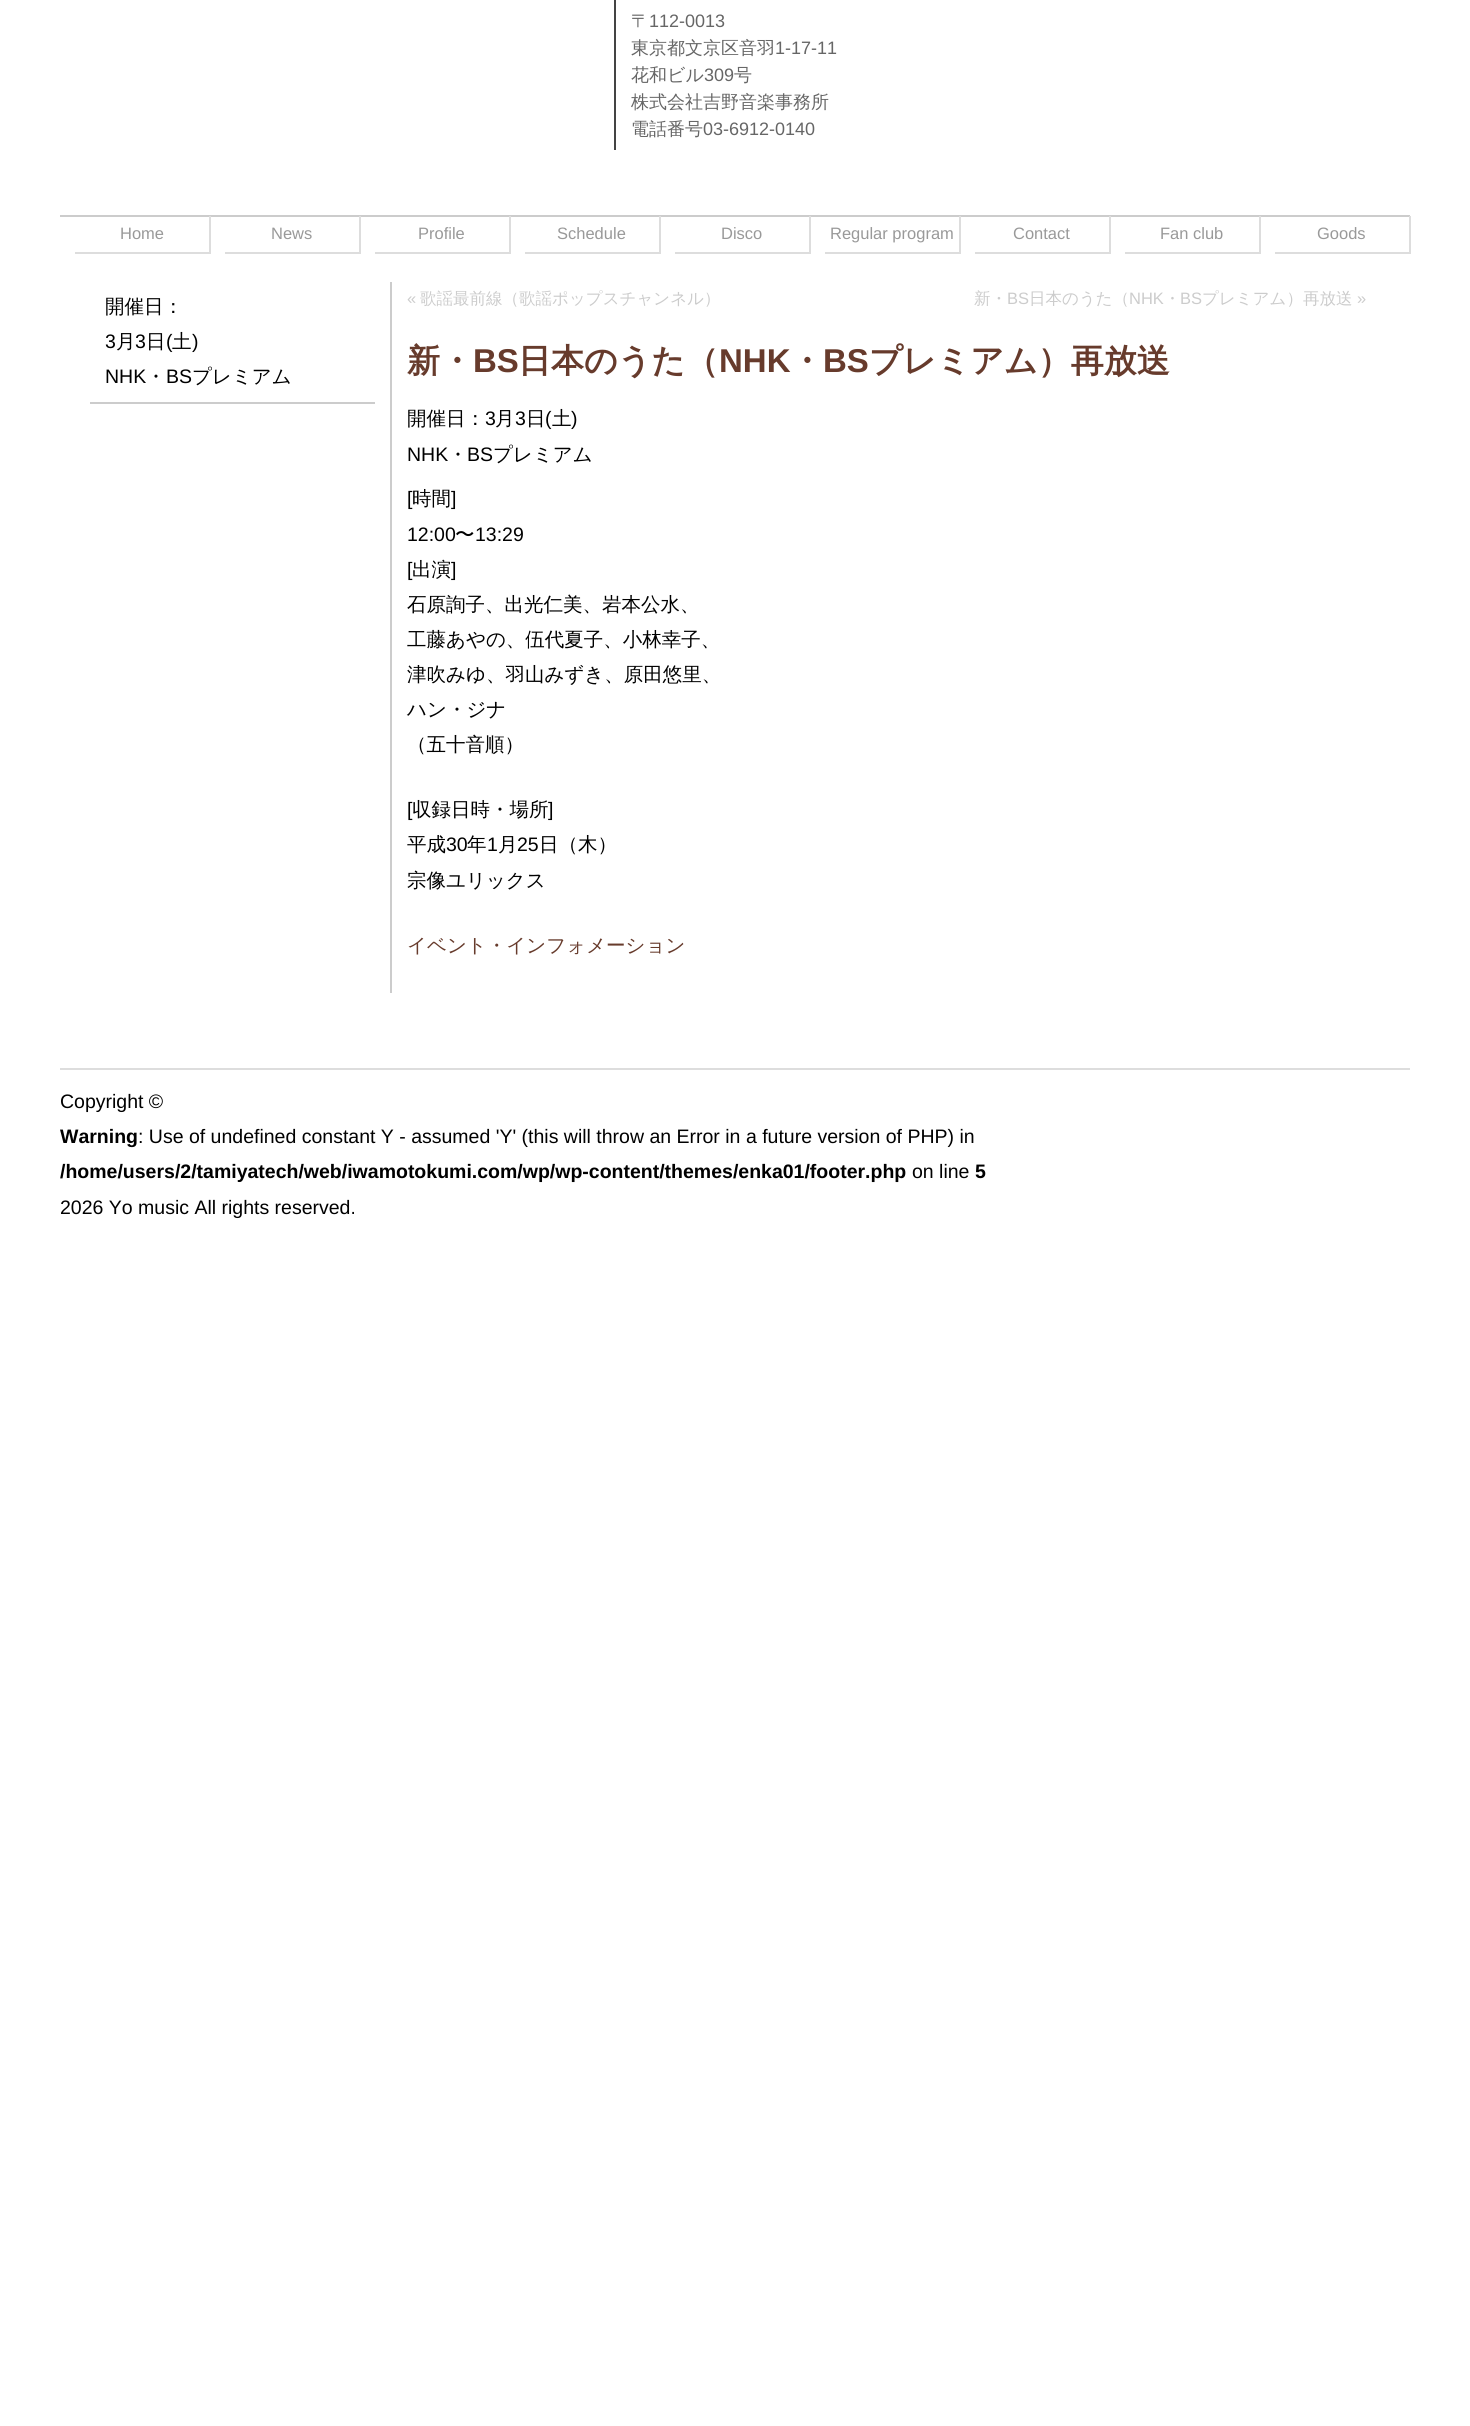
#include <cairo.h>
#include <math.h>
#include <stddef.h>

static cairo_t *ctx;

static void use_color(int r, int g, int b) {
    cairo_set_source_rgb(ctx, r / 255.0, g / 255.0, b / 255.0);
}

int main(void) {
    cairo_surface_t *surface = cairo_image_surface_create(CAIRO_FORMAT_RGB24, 1470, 2426);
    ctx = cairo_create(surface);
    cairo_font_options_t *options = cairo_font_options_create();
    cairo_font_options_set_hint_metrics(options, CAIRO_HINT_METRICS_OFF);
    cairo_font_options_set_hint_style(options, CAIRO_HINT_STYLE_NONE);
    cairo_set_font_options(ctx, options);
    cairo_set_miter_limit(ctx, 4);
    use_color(255, 255, 255);
    cairo_paint(ctx);
    use_color(68, 68, 68);
    cairo_rectangle(ctx, 614, 0, 2, 150);
    cairo_fill(ctx);
    cairo_select_font_face(ctx, "WenQuanYi Zen Hei Medium", CAIRO_FONT_SLANT_NORMAL, CAIRO_FONT_WEIGHT_NORMAL);
    cairo_set_font_size(ctx, 18);
    use_color(102, 102, 102);
    cairo_move_to(ctx, 631, 27);
    cairo_show_text(ctx, "〒");
    cairo_select_font_face(ctx, "Liberation Sans", CAIRO_FONT_SLANT_NORMAL, CAIRO_FONT_WEIGHT_NORMAL);
    cairo_move_to(ctx, 649, 27);
    cairo_show_text(ctx, "112-0013");
    cairo_select_font_face(ctx, "WenQuanYi Zen Hei Medium", CAIRO_FONT_SLANT_NORMAL, CAIRO_FONT_WEIGHT_NORMAL);
    cairo_move_to(ctx, 631, 54);
    cairo_show_text(ctx, "東京都文京区音羽");
    cairo_select_font_face(ctx, "Liberation Sans", CAIRO_FONT_SLANT_NORMAL, CAIRO_FONT_WEIGHT_NORMAL);
    cairo_move_to(ctx, 775, 54);
    cairo_show_text(ctx, "1-17-11");
    cairo_select_font_face(ctx, "WenQuanYi Zen Hei Medium", CAIRO_FONT_SLANT_NORMAL, CAIRO_FONT_WEIGHT_NORMAL);
    cairo_move_to(ctx, 631, 81);
    cairo_show_text(ctx, "花和ビル");
    cairo_select_font_face(ctx, "Liberation Sans", CAIRO_FONT_SLANT_NORMAL, CAIRO_FONT_WEIGHT_NORMAL);
    cairo_move_to(ctx, 704, 81);
    cairo_show_text(ctx, "309");
    cairo_select_font_face(ctx, "WenQuanYi Zen Hei Medium", CAIRO_FONT_SLANT_NORMAL, CAIRO_FONT_WEIGHT_NORMAL);
    cairo_move_to(ctx, 734, 81);
    cairo_show_text(ctx, "号");
    cairo_move_to(ctx, 631, 108);
    cairo_show_text(ctx, "株式会社吉野音楽事務所");
    cairo_move_to(ctx, 631, 135);
    cairo_show_text(ctx, "電話番号");
    cairo_select_font_face(ctx, "Liberation Sans", CAIRO_FONT_SLANT_NORMAL, CAIRO_FONT_WEIGHT_NORMAL);
    cairo_move_to(ctx, 703, 135);
    cairo_show_text(ctx, "03-6912-0140");
    use_color(204, 204, 204);
    cairo_rectangle(ctx, 60, 215, 1350, 2);
    cairo_fill(ctx);
    use_color(221, 221, 221);
    cairo_rectangle(ctx, 209, 216, 2, 38);
    cairo_fill(ctx);
    cairo_rectangle(ctx, 75, 252, 135, 2);
    cairo_fill(ctx);
    cairo_set_font_size(ctx, 16.5);
    use_color(153, 153, 153);
    cairo_move_to(ctx, 120, 239);
    cairo_show_text(ctx, "Home");
    use_color(221, 221, 221);
    cairo_rectangle(ctx, 359, 216, 2, 38);
    cairo_fill(ctx);
    cairo_rectangle(ctx, 225, 252, 135, 2);
    cairo_fill(ctx);
    use_color(153, 153, 153);
    cairo_move_to(ctx, 271, 239);
    cairo_show_text(ctx, "News");
    use_color(221, 221, 221);
    cairo_rectangle(ctx, 509, 216, 2, 38);
    cairo_fill(ctx);
    cairo_rectangle(ctx, 375, 252, 135, 2);
    cairo_fill(ctx);
    use_color(153, 153, 153);
    cairo_move_to(ctx, 418, 239);
    cairo_show_text(ctx, "Profile");
    use_color(221, 221, 221);
    cairo_rectangle(ctx, 659, 216, 2, 38);
    cairo_fill(ctx);
    cairo_rectangle(ctx, 525, 252, 135, 2);
    cairo_fill(ctx);
    use_color(153, 153, 153);
    cairo_move_to(ctx, 557, 239);
    cairo_show_text(ctx, "Schedule");
    use_color(221, 221, 221);
    cairo_rectangle(ctx, 809, 216, 2, 38);
    cairo_fill(ctx);
    cairo_rectangle(ctx, 675, 252, 135, 2);
    cairo_fill(ctx);
    use_color(153, 153, 153);
    cairo_move_to(ctx, 721, 239);
    cairo_show_text(ctx, "Disco");
    use_color(221, 221, 221);
    cairo_rectangle(ctx, 959, 216, 2, 38);
    cairo_fill(ctx);
    cairo_rectangle(ctx, 825, 252, 135, 2);
    cairo_fill(ctx);
    use_color(153, 153, 153);
    cairo_move_to(ctx, 830, 239);
    cairo_show_text(ctx, "Regular program");
    use_color(221, 221, 221);
    cairo_rectangle(ctx, 1109, 216, 2, 38);
    cairo_fill(ctx);
    cairo_rectangle(ctx, 975, 252, 135, 2);
    cairo_fill(ctx);
    use_color(153, 153, 153);
    cairo_move_to(ctx, 1013, 239);
    cairo_show_text(ctx, "Contact");
    use_color(221, 221, 221);
    cairo_rectangle(ctx, 1259, 216, 2, 38);
    cairo_fill(ctx);
    cairo_rectangle(ctx, 1125, 252, 135, 2);
    cairo_fill(ctx);
    use_color(153, 153, 153);
    cairo_move_to(ctx, 1160, 239);
    cairo_show_text(ctx, "Fan club");
    use_color(221, 221, 221);
    cairo_rectangle(ctx, 1409, 216, 2, 38);
    cairo_fill(ctx);
    cairo_rectangle(ctx, 1275, 252, 135, 2);
    cairo_fill(ctx);
    use_color(153, 153, 153);
    cairo_move_to(ctx, 1317, 239);
    cairo_show_text(ctx, "Goods");
    use_color(204, 204, 204);
    cairo_rectangle(ctx, 90, 402, 285, 2);
    cairo_fill(ctx);
    cairo_select_font_face(ctx, "WenQuanYi Zen Hei Medium", CAIRO_FONT_SLANT_NORMAL, CAIRO_FONT_WEIGHT_NORMAL);
    cairo_set_font_size(ctx, 19.5);
    use_color(0, 0, 0);
    cairo_move_to(ctx, 105, 313);
    cairo_show_text(ctx, "開催日：");
    cairo_select_font_face(ctx, "Liberation Sans", CAIRO_FONT_SLANT_NORMAL, CAIRO_FONT_WEIGHT_NORMAL);
    cairo_move_to(ctx, 105, 348);
    cairo_show_text(ctx, "3");
    cairo_select_font_face(ctx, "WenQuanYi Zen Hei Medium", CAIRO_FONT_SLANT_NORMAL, CAIRO_FONT_WEIGHT_NORMAL);
    cairo_move_to(ctx, 116, 348);
    cairo_show_text(ctx, "月");
    cairo_select_font_face(ctx, "Liberation Sans", CAIRO_FONT_SLANT_NORMAL, CAIRO_FONT_WEIGHT_NORMAL);
    cairo_move_to(ctx, 135, 348);
    cairo_show_text(ctx, "3");
    cairo_select_font_face(ctx, "WenQuanYi Zen Hei Medium", CAIRO_FONT_SLANT_NORMAL, CAIRO_FONT_WEIGHT_NORMAL);
    cairo_move_to(ctx, 146, 348);
    cairo_show_text(ctx, "日");
    cairo_select_font_face(ctx, "Liberation Sans", CAIRO_FONT_SLANT_NORMAL, CAIRO_FONT_WEIGHT_NORMAL);
    cairo_move_to(ctx, 166, 348);
    cairo_show_text(ctx, "(");
    cairo_select_font_face(ctx, "WenQuanYi Zen Hei Medium", CAIRO_FONT_SLANT_NORMAL, CAIRO_FONT_WEIGHT_NORMAL);
    cairo_move_to(ctx, 172, 348);
    cairo_show_text(ctx, "土");
    cairo_select_font_face(ctx, "Liberation Sans", CAIRO_FONT_SLANT_NORMAL, CAIRO_FONT_WEIGHT_NORMAL);
    cairo_move_to(ctx, 192, 348);
    cairo_show_text(ctx, ")");
    cairo_move_to(ctx, 105, 383);
    cairo_show_text(ctx, "NHK");
    cairo_select_font_face(ctx, "WenQuanYi Zen Hei Medium", CAIRO_FONT_SLANT_NORMAL, CAIRO_FONT_WEIGHT_NORMAL);
    cairo_move_to(ctx, 146, 383);
    cairo_show_text(ctx, "・");
    cairo_select_font_face(ctx, "Liberation Sans", CAIRO_FONT_SLANT_NORMAL, CAIRO_FONT_WEIGHT_NORMAL);
    cairo_move_to(ctx, 166, 383);
    cairo_show_text(ctx, "BS");
    cairo_select_font_face(ctx, "WenQuanYi Zen Hei Medium", CAIRO_FONT_SLANT_NORMAL, CAIRO_FONT_WEIGHT_NORMAL);
    cairo_move_to(ctx, 192, 383);
    cairo_show_text(ctx, "プレミアム");
    use_color(204, 204, 204);
    cairo_rectangle(ctx, 390, 282, 2, 711);
    cairo_fill(ctx);
    cairo_select_font_face(ctx, "Liberation Sans", CAIRO_FONT_SLANT_NORMAL, CAIRO_FONT_WEIGHT_NORMAL);
    cairo_set_font_size(ctx, 16.5);
    cairo_move_to(ctx, 407, 304);
    cairo_show_text(ctx, "«");
    cairo_select_font_face(ctx, "WenQuanYi Zen Hei Medium", CAIRO_FONT_SLANT_NORMAL, CAIRO_FONT_WEIGHT_NORMAL);
    cairo_move_to(ctx, 420, 304);
    cairo_show_text(ctx, "歌謡最前線（歌謡ポップスチャンネル）");
    cairo_move_to(ctx, 974, 304);
    cairo_show_text(ctx, "新・");
    cairo_select_font_face(ctx, "Liberation Sans", CAIRO_FONT_SLANT_NORMAL, CAIRO_FONT_WEIGHT_NORMAL);
    cairo_move_to(ctx, 1007, 304);
    cairo_show_text(ctx, "BS");
    cairo_select_font_face(ctx, "WenQuanYi Zen Hei Medium", CAIRO_FONT_SLANT_NORMAL, CAIRO_FONT_WEIGHT_NORMAL);
    cairo_move_to(ctx, 1029, 304);
    cairo_show_text(ctx, "日本のうた（");
    cairo_select_font_face(ctx, "Liberation Sans", CAIRO_FONT_SLANT_NORMAL, CAIRO_FONT_WEIGHT_NORMAL);
    cairo_move_to(ctx, 1129, 304);
    cairo_show_text(ctx, "NHK");
    cairo_select_font_face(ctx, "WenQuanYi Zen Hei Medium", CAIRO_FONT_SLANT_NORMAL, CAIRO_FONT_WEIGHT_NORMAL);
    cairo_move_to(ctx, 1164, 304);
    cairo_show_text(ctx, "・");
    cairo_select_font_face(ctx, "Liberation Sans", CAIRO_FONT_SLANT_NORMAL, CAIRO_FONT_WEIGHT_NORMAL);
    cairo_move_to(ctx, 1180, 304);
    cairo_show_text(ctx, "BS");
    cairo_select_font_face(ctx, "WenQuanYi Zen Hei Medium", CAIRO_FONT_SLANT_NORMAL, CAIRO_FONT_WEIGHT_NORMAL);
    cairo_move_to(ctx, 1202, 304);
    cairo_show_text(ctx, "プレミアム）再放送");
    cairo_select_font_face(ctx, "Liberation Sans", CAIRO_FONT_SLANT_NORMAL, CAIRO_FONT_WEIGHT_NORMAL);
    cairo_move_to(ctx, 1357, 304);
    cairo_show_text(ctx, "»");
    cairo_select_font_face(ctx, "WenQuanYi Zen Hei", CAIRO_FONT_SLANT_NORMAL, CAIRO_FONT_WEIGHT_BOLD);
    cairo_set_font_size(ctx, 33);
    use_color(103, 59, 44);
    cairo_move_to(ctx, 407, 372);
    cairo_show_text(ctx, "新・");
    cairo_select_font_face(ctx, "Liberation Sans", CAIRO_FONT_SLANT_NORMAL, CAIRO_FONT_WEIGHT_BOLD);
    cairo_move_to(ctx, 473, 372);
    cairo_show_text(ctx, "BS");
    cairo_select_font_face(ctx, "WenQuanYi Zen Hei", CAIRO_FONT_SLANT_NORMAL, CAIRO_FONT_WEIGHT_BOLD);
    cairo_move_to(ctx, 518, 372);
    cairo_show_text(ctx, "日本のうた（");
    cairo_select_font_face(ctx, "Liberation Sans", CAIRO_FONT_SLANT_NORMAL, CAIRO_FONT_WEIGHT_BOLD);
    cairo_move_to(ctx, 719, 372);
    cairo_show_text(ctx, "NHK");
    cairo_select_font_face(ctx, "WenQuanYi Zen Hei", CAIRO_FONT_SLANT_NORMAL, CAIRO_FONT_WEIGHT_BOLD);
    cairo_move_to(ctx, 790, 372);
    cairo_show_text(ctx, "・");
    cairo_select_font_face(ctx, "Liberation Sans", CAIRO_FONT_SLANT_NORMAL, CAIRO_FONT_WEIGHT_BOLD);
    cairo_move_to(ctx, 823, 372);
    cairo_show_text(ctx, "BS");
    cairo_select_font_face(ctx, "WenQuanYi Zen Hei", CAIRO_FONT_SLANT_NORMAL, CAIRO_FONT_WEIGHT_BOLD);
    cairo_move_to(ctx, 869, 372);
    cairo_show_text(ctx, "プレミアム）再放送");
    cairo_select_font_face(ctx, "WenQuanYi Zen Hei Medium", CAIRO_FONT_SLANT_NORMAL, CAIRO_FONT_WEIGHT_NORMAL);
    cairo_set_font_size(ctx, 19.5);
    use_color(0, 0, 0);
    cairo_move_to(ctx, 407, 425);
    cairo_show_text(ctx, "開催日：");
    cairo_select_font_face(ctx, "Liberation Sans", CAIRO_FONT_SLANT_NORMAL, CAIRO_FONT_WEIGHT_NORMAL);
    cairo_move_to(ctx, 485, 425);
    cairo_show_text(ctx, "3");
    cairo_select_font_face(ctx, "WenQuanYi Zen Hei Medium", CAIRO_FONT_SLANT_NORMAL, CAIRO_FONT_WEIGHT_NORMAL);
    cairo_move_to(ctx, 495, 425);
    cairo_show_text(ctx, "月");
    cairo_select_font_face(ctx, "Liberation Sans", CAIRO_FONT_SLANT_NORMAL, CAIRO_FONT_WEIGHT_NORMAL);
    cairo_move_to(ctx, 515, 425);
    cairo_show_text(ctx, "3");
    cairo_select_font_face(ctx, "WenQuanYi Zen Hei Medium", CAIRO_FONT_SLANT_NORMAL, CAIRO_FONT_WEIGHT_NORMAL);
    cairo_move_to(ctx, 526, 425);
    cairo_show_text(ctx, "日");
    cairo_select_font_face(ctx, "Liberation Sans", CAIRO_FONT_SLANT_NORMAL, CAIRO_FONT_WEIGHT_NORMAL);
    cairo_move_to(ctx, 545, 425);
    cairo_show_text(ctx, "(");
    cairo_select_font_face(ctx, "WenQuanYi Zen Hei Medium", CAIRO_FONT_SLANT_NORMAL, CAIRO_FONT_WEIGHT_NORMAL);
    cairo_move_to(ctx, 552, 425);
    cairo_show_text(ctx, "土");
    cairo_select_font_face(ctx, "Liberation Sans", CAIRO_FONT_SLANT_NORMAL, CAIRO_FONT_WEIGHT_NORMAL);
    cairo_move_to(ctx, 571, 425);
    cairo_show_text(ctx, ")");
    cairo_move_to(ctx, 407, 461);
    cairo_show_text(ctx, "NHK");
    cairo_select_font_face(ctx, "WenQuanYi Zen Hei Medium", CAIRO_FONT_SLANT_NORMAL, CAIRO_FONT_WEIGHT_NORMAL);
    cairo_move_to(ctx, 448, 461);
    cairo_show_text(ctx, "・");
    cairo_select_font_face(ctx, "Liberation Sans", CAIRO_FONT_SLANT_NORMAL, CAIRO_FONT_WEIGHT_NORMAL);
    cairo_move_to(ctx, 467, 461);
    cairo_show_text(ctx, "BS");
    cairo_select_font_face(ctx, "WenQuanYi Zen Hei Medium", CAIRO_FONT_SLANT_NORMAL, CAIRO_FONT_WEIGHT_NORMAL);
    cairo_move_to(ctx, 493, 461);
    cairo_show_text(ctx, "プレミアム");
    cairo_select_font_face(ctx, "Liberation Sans", CAIRO_FONT_SLANT_NORMAL, CAIRO_FONT_WEIGHT_NORMAL);
    cairo_move_to(ctx, 407, 505);
    cairo_show_text(ctx, "[");
    cairo_select_font_face(ctx, "WenQuanYi Zen Hei Medium", CAIRO_FONT_SLANT_NORMAL, CAIRO_FONT_WEIGHT_NORMAL);
    cairo_move_to(ctx, 412, 505);
    cairo_show_text(ctx, "時間");
    cairo_select_font_face(ctx, "Liberation Sans", CAIRO_FONT_SLANT_NORMAL, CAIRO_FONT_WEIGHT_NORMAL);
    cairo_move_to(ctx, 451, 505);
    cairo_show_text(ctx, "]");
    cairo_move_to(ctx, 407, 541);
    cairo_show_text(ctx, "12:00");
    cairo_select_font_face(ctx, "WenQuanYi Zen Hei Medium", CAIRO_FONT_SLANT_NORMAL, CAIRO_FONT_WEIGHT_NORMAL);
    cairo_move_to(ctx, 455, 541);
    cairo_show_text(ctx, "〜");
    cairo_select_font_face(ctx, "Liberation Sans", CAIRO_FONT_SLANT_NORMAL, CAIRO_FONT_WEIGHT_NORMAL);
    cairo_move_to(ctx, 475, 541);
    cairo_show_text(ctx, "13:29");
    cairo_move_to(ctx, 407, 576);
    cairo_show_text(ctx, "[");
    cairo_select_font_face(ctx, "WenQuanYi Zen Hei Medium", CAIRO_FONT_SLANT_NORMAL, CAIRO_FONT_WEIGHT_NORMAL);
    cairo_move_to(ctx, 412, 576);
    cairo_show_text(ctx, "出演");
    cairo_select_font_face(ctx, "Liberation Sans", CAIRO_FONT_SLANT_NORMAL, CAIRO_FONT_WEIGHT_NORMAL);
    cairo_move_to(ctx, 451, 576);
    cairo_show_text(ctx, "]");
    cairo_select_font_face(ctx, "WenQuanYi Zen Hei Medium", CAIRO_FONT_SLANT_NORMAL, CAIRO_FONT_WEIGHT_NORMAL);
    cairo_move_to(ctx, 407, 611);
    cairo_show_text(ctx, "石原詢子、出光仁美、岩本公水、");
    cairo_move_to(ctx, 407, 646);
    cairo_show_text(ctx, "工藤あやの、伍代夏子、小林幸子、");
    cairo_move_to(ctx, 407, 681);
    cairo_show_text(ctx, "津吹みゆ、羽山みずき、原田悠里、");
    cairo_move_to(ctx, 407, 716);
    cairo_show_text(ctx, "ハン・ジナ");
    cairo_move_to(ctx, 407, 751);
    cairo_show_text(ctx, "（五十音順）");
    cairo_select_font_face(ctx, "Liberation Sans", CAIRO_FONT_SLANT_NORMAL, CAIRO_FONT_WEIGHT_NORMAL);
    cairo_move_to(ctx, 407, 816);
    cairo_show_text(ctx, "[");
    cairo_select_font_face(ctx, "WenQuanYi Zen Hei Medium", CAIRO_FONT_SLANT_NORMAL, CAIRO_FONT_WEIGHT_NORMAL);
    cairo_move_to(ctx, 412, 816);
    cairo_show_text(ctx, "収録日時・場所");
    cairo_select_font_face(ctx, "Liberation Sans", CAIRO_FONT_SLANT_NORMAL, CAIRO_FONT_WEIGHT_NORMAL);
    cairo_move_to(ctx, 548, 816);
    cairo_show_text(ctx, "]");
    cairo_select_font_face(ctx, "WenQuanYi Zen Hei Medium", CAIRO_FONT_SLANT_NORMAL, CAIRO_FONT_WEIGHT_NORMAL);
    cairo_move_to(ctx, 407, 851);
    cairo_show_text(ctx, "平成");
    cairo_select_font_face(ctx, "Liberation Sans", CAIRO_FONT_SLANT_NORMAL, CAIRO_FONT_WEIGHT_NORMAL);
    cairo_move_to(ctx, 446, 851);
    cairo_show_text(ctx, "30");
    cairo_select_font_face(ctx, "WenQuanYi Zen Hei Medium", CAIRO_FONT_SLANT_NORMAL, CAIRO_FONT_WEIGHT_NORMAL);
    cairo_move_to(ctx, 467, 851);
    cairo_show_text(ctx, "年");
    cairo_select_font_face(ctx, "Liberation Sans", CAIRO_FONT_SLANT_NORMAL, CAIRO_FONT_WEIGHT_NORMAL);
    cairo_move_to(ctx, 487, 851);
    cairo_show_text(ctx, "1");
    cairo_select_font_face(ctx, "WenQuanYi Zen Hei Medium", CAIRO_FONT_SLANT_NORMAL, CAIRO_FONT_WEIGHT_NORMAL);
    cairo_move_to(ctx, 498, 851);
    cairo_show_text(ctx, "月");
    cairo_select_font_face(ctx, "Liberation Sans", CAIRO_FONT_SLANT_NORMAL, CAIRO_FONT_WEIGHT_NORMAL);
    cairo_move_to(ctx, 517, 851);
    cairo_show_text(ctx, "25");
    cairo_select_font_face(ctx, "WenQuanYi Zen Hei Medium", CAIRO_FONT_SLANT_NORMAL, CAIRO_FONT_WEIGHT_NORMAL);
    cairo_move_to(ctx, 539, 851);
    cairo_show_text(ctx, "日（木）");
    cairo_move_to(ctx, 407, 887);
    cairo_show_text(ctx, "宗像ユリックス");
    use_color(103, 59, 44);
    cairo_move_to(ctx, 407, 952);
    cairo_show_text(ctx, "イベント・インフォメーション");
    use_color(221, 221, 221);
    cairo_rectangle(ctx, 60, 1068, 1350, 2);
    cairo_fill(ctx);
    cairo_select_font_face(ctx, "Liberation Sans", CAIRO_FONT_SLANT_NORMAL, CAIRO_FONT_WEIGHT_NORMAL);
    use_color(0, 0, 0);
    cairo_move_to(ctx, 60, 1108);
    cairo_show_text(ctx, "Copyright ©");
    cairo_select_font_face(ctx, "Liberation Sans", CAIRO_FONT_SLANT_NORMAL, CAIRO_FONT_WEIGHT_BOLD);
    cairo_move_to(ctx, 60, 1143);
    cairo_show_text(ctx, "Warning");
    cairo_select_font_face(ctx, "Liberation Sans", CAIRO_FONT_SLANT_NORMAL, CAIRO_FONT_WEIGHT_NORMAL);
    cairo_move_to(ctx, 138, 1143);
    cairo_show_text(ctx, ": Use of undefined constant Y - assumed 'Y' (this will throw an Error in a future version of PHP) in");
    cairo_select_font_face(ctx, "Liberation Sans", CAIRO_FONT_SLANT_NORMAL, CAIRO_FONT_WEIGHT_BOLD);
    cairo_move_to(ctx, 60, 1178);
    cairo_show_text(ctx, "/home/users/2/tamiyatech/web/iwamotokumi.com/wp/wp-content/themes/enka01/footer.php");
    cairo_select_font_face(ctx, "Liberation Sans", CAIRO_FONT_SLANT_NORMAL, CAIRO_FONT_WEIGHT_NORMAL);
    cairo_move_to(ctx, 912, 1178);
    cairo_show_text(ctx, "on line");
    cairo_select_font_face(ctx, "Liberation Sans", CAIRO_FONT_SLANT_NORMAL, CAIRO_FONT_WEIGHT_BOLD);
    cairo_move_to(ctx, 975, 1178);
    cairo_show_text(ctx, "5");
    cairo_select_font_face(ctx, "Liberation Sans", CAIRO_FONT_SLANT_NORMAL, CAIRO_FONT_WEIGHT_NORMAL);
    cairo_move_to(ctx, 60, 1214);
    cairo_show_text(ctx, "2026 Yo music All rights reserved.");
    cairo_surface_write_to_png(surface, "result.png");
    cairo_font_options_destroy(options);
    cairo_destroy(ctx);
    cairo_surface_destroy(surface);
    return 0;
}
